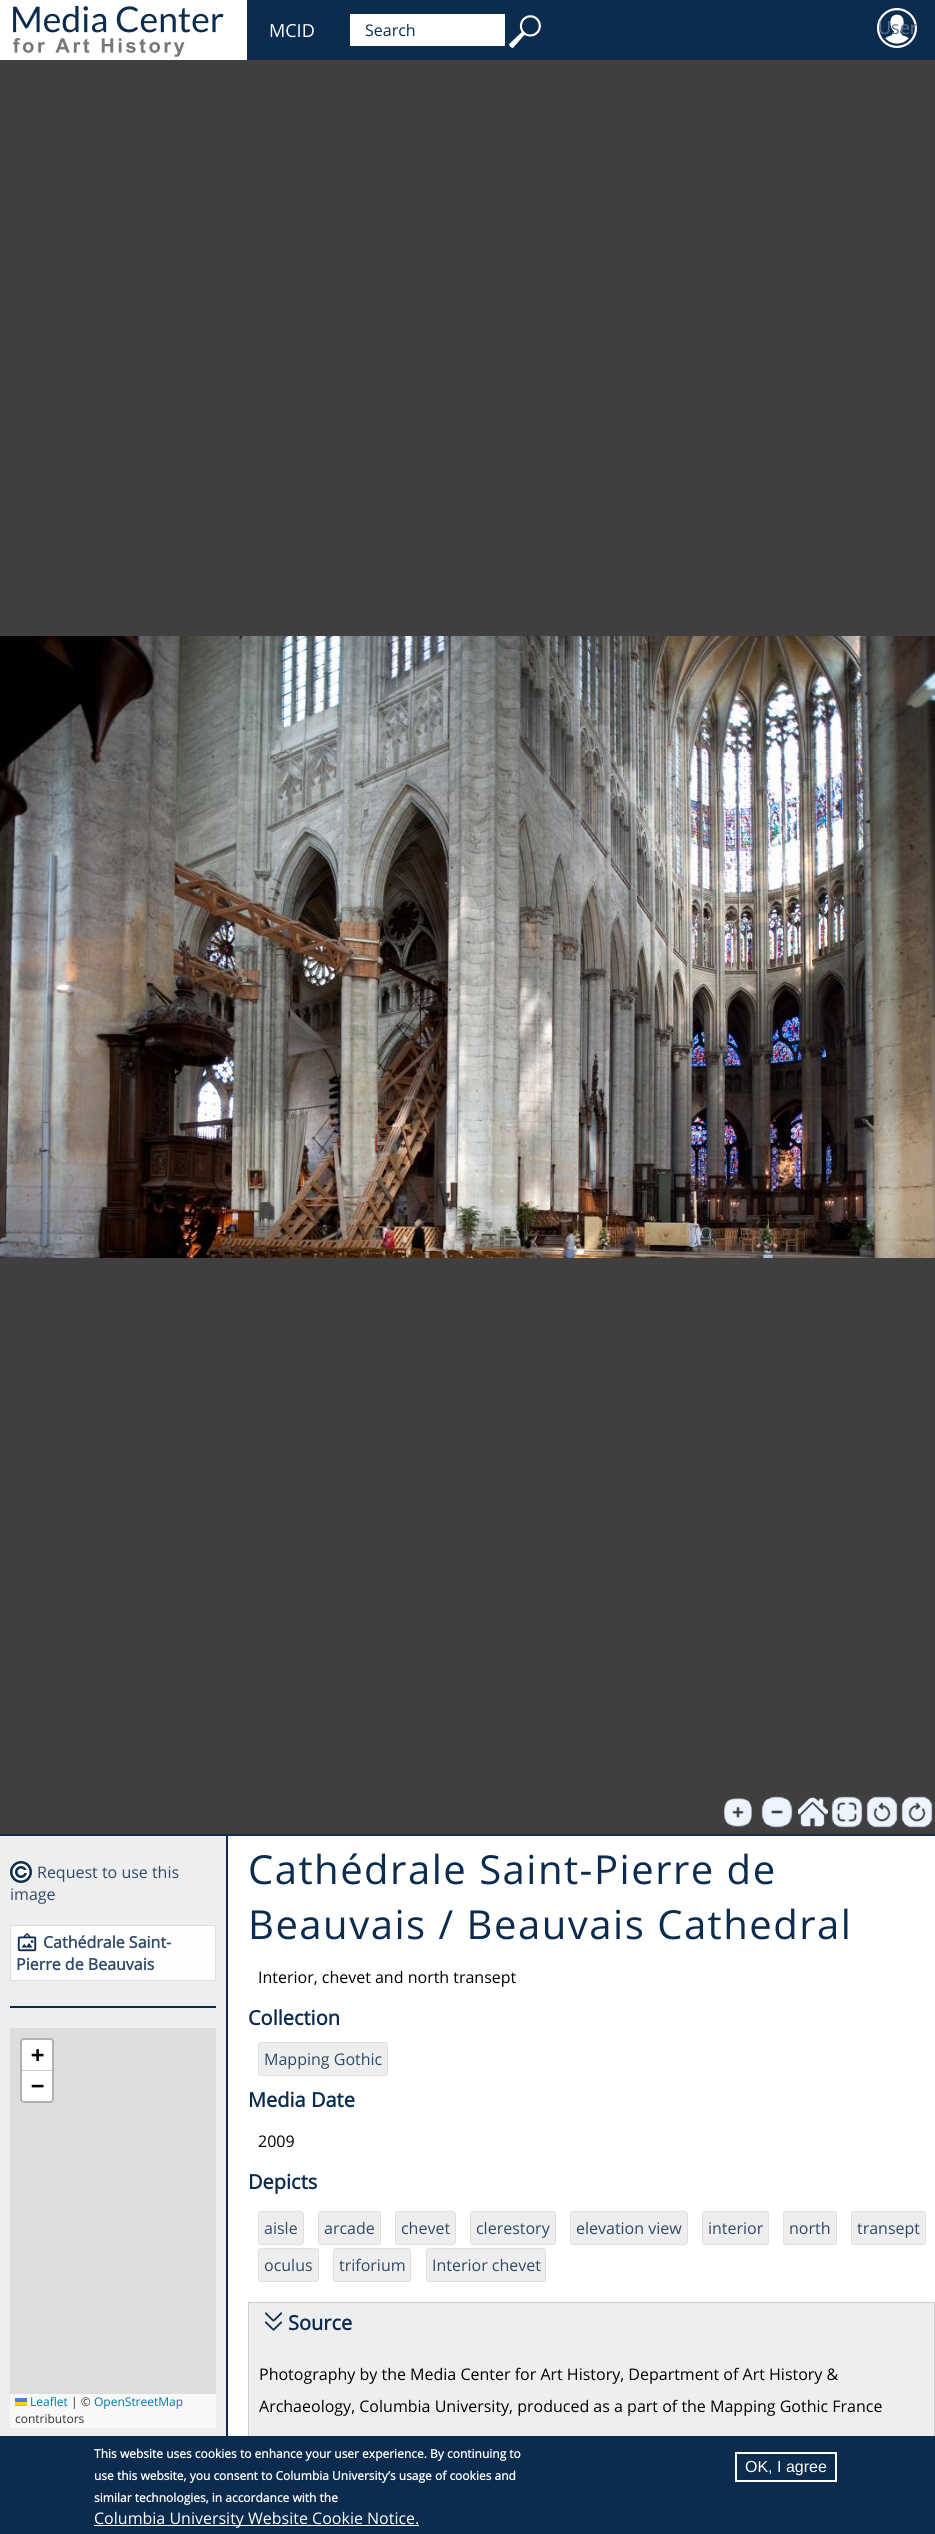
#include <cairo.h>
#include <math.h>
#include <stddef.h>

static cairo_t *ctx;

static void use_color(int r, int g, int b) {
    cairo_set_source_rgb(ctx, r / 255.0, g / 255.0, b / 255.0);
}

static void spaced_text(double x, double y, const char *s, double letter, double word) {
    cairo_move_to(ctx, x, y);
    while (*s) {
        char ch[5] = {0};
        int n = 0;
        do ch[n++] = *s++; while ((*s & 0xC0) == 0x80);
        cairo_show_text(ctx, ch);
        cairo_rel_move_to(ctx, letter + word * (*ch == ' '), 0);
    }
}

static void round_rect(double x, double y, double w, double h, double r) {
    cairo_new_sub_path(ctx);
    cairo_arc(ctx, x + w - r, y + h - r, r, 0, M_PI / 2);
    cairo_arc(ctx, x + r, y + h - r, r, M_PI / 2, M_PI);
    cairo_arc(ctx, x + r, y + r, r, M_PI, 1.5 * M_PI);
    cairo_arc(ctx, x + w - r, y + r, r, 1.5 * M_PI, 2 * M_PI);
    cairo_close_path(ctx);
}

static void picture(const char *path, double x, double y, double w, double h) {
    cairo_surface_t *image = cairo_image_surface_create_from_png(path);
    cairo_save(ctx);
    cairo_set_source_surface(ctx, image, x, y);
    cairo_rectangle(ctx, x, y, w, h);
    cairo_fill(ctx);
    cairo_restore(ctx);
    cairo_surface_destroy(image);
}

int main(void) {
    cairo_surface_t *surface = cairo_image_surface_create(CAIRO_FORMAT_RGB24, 935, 2534);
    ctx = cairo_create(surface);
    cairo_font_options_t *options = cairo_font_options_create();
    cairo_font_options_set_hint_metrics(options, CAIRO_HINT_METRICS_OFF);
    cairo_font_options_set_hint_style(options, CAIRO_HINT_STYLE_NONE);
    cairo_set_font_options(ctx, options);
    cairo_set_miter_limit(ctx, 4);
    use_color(255, 255, 255);
    cairo_paint(ctx);
    use_color(11, 44, 79);
    cairo_rectangle(ctx, 247, 0, 688, 60);
    cairo_fill(ctx);
    picture("img1.png", 13, 5, 211, 52);
    cairo_select_font_face(ctx, "Open Sans", CAIRO_FONT_SLANT_NORMAL, CAIRO_FONT_WEIGHT_NORMAL);
    cairo_set_font_size(ctx, 18);
    use_color(255, 255, 255);
    cairo_move_to(ctx, 269, 37);
    cairo_show_text(ctx, "MCID");
    cairo_rectangle(ctx, 350, 14, 155, 32);
    cairo_fill(ctx);
    cairo_set_font_size(ctx, 16);
    use_color(11, 44, 79);
    cairo_move_to(ctx, 365, 36);
    cairo_show_text(ctx, "Search");
    picture("img2.png", 509, 15, 32, 33);
    picture("img3.png", 877, 8, 40, 40);
    cairo_set_font_size(ctx, 18);
    use_color(92, 114, 137);
    cairo_move_to(ctx, 878, 34);
    cairo_show_text(ctx, "User");
    use_color(63, 63, 63);
    cairo_rectangle(ctx, 0, 60, 935, 1774);
    cairo_fill(ctx);
    picture("img4.png", 0, 636, 935, 622);
    picture("img5.png", 724, 1798, 28, 29);
    picture("img6.png", 724, 1798, 28, 29);
    picture("img7.png", 761, 1796, 32, 32);
    picture("img8.png", 761, 1796, 32, 32);
    picture("img9.png", 798, 1797, 30, 30);
    picture("img10.png", 798, 1797, 30, 30);
    picture("img11.png", 831, 1796, 32, 32);
    picture("img12.png", 831, 1796, 32, 32);
    picture("img13.png", 866, 1796, 32, 32);
    picture("img14.png", 866, 1796, 32, 32);
    picture("img15.png", 901, 1796, 32, 32);
    picture("img16.png", 901, 1796, 32, 32);
    use_color(11, 44, 79);
    cairo_rectangle(ctx, 0, 1834, 935, 2);
    cairo_fill(ctx);
    use_color(238, 238, 238);
    cairo_rectangle(ctx, 0, 1836, 226, 600);
    cairo_fill(ctx);
    use_color(11, 44, 79);
    cairo_rectangle(ctx, 226, 1836, 2, 600);
    cairo_fill(ctx);
    picture("img17.png", 10, 1861, 22, 22);
    cairo_set_font_size(ctx, 16);
    use_color(46, 74, 104);
    cairo_move_to(ctx, 37, 1878);
    cairo_show_text(ctx, "Request to use this");
    cairo_move_to(ctx, 10, 1900);
    cairo_show_text(ctx, "image");
    use_color(254, 254, 254);
    cairo_rectangle(ctx, 10.5, 1925.5, 205, 55);
    cairo_fill_preserve(ctx);
    use_color(223, 223, 223);
    cairo_set_line_width(ctx, 1);
    cairo_stroke(ctx);
    picture("img18.png", 17, 1933, 20, 19);
    cairo_select_font_face(ctx, "Open Sans", CAIRO_FONT_SLANT_NORMAL, CAIRO_FONT_WEIGHT_BOLD);
    use_color(46, 74, 104);
    cairo_move_to(ctx, 43, 1948);
    cairo_show_text(ctx, "Cathédrale Saint-");
    cairo_move_to(ctx, 16, 1970);
    cairo_show_text(ctx, "Pierre de Beauvais");
    use_color(11, 44, 79);
    cairo_rectangle(ctx, 10, 2006, 206, 2);
    cairo_fill(ctx);
    use_color(221, 221, 221);
    cairo_rectangle(ctx, 10, 2028, 206, 366);
    cairo_fill(ctx);
    round_rect(21, 2039, 32, 63, 3);
    use_color(177, 177, 177);
    cairo_set_line_width(ctx, 2);
    cairo_stroke(ctx);
    use_color(255, 255, 255);
    cairo_new_path(ctx);
    cairo_move_to(ctx, 24, 2040);
    cairo_line_to(ctx, 50, 2040);
    cairo_curve_to(ctx, 51, 2040, 52, 2041, 52, 2042);
    cairo_line_to(ctx, 52, 2071);
    cairo_line_to(ctx, 22, 2071);
    cairo_line_to(ctx, 22, 2042);
    cairo_curve_to(ctx, 22, 2041, 23, 2040, 24, 2040);
    cairo_close_path(ctx);
    cairo_fill(ctx);
    use_color(204, 204, 204);
    cairo_rectangle(ctx, 22, 2070, 30, 1);
    cairo_fill(ctx);
    cairo_select_font_face(ctx, "DejaVu Sans Mono", CAIRO_FONT_SLANT_NORMAL, CAIRO_FONT_WEIGHT_BOLD);
    cairo_set_font_size(ctx, 22);
    use_color(0, 0, 0);
    cairo_move_to(ctx, 31, 2062);
    cairo_show_text(ctx, "+");
    use_color(255, 255, 255);
    cairo_new_path(ctx);
    cairo_move_to(ctx, 22, 2071);
    cairo_line_to(ctx, 52, 2071);
    cairo_line_to(ctx, 52, 2099);
    cairo_curve_to(ctx, 52, 2100, 51, 2101, 50, 2101);
    cairo_line_to(ctx, 24, 2101);
    cairo_curve_to(ctx, 23, 2101, 22, 2100, 22, 2099);
    cairo_close_path(ctx);
    cairo_fill(ctx);
    use_color(0, 0, 0);
    cairo_move_to(ctx, 31, 2093);
    cairo_show_text(ctx, "−");
    use_color(248, 248, 248);
    cairo_rectangle(ctx, 10, 2394, 206, 34);
    cairo_fill(ctx);
    cairo_select_font_face(ctx, "Open Sans", CAIRO_FONT_SLANT_NORMAL, CAIRO_FONT_WEIGHT_NORMAL);
    cairo_set_font_size(ctx, 12);
    use_color(0, 120, 168);
    cairo_move_to(ctx, 30, 2406);
    cairo_show_text(ctx, "Leaflet");
    use_color(76, 123, 225);
    cairo_rectangle(ctx, 15, 2398, 12, 4);
    cairo_fill(ctx);
    use_color(255, 213, 0);
    cairo_rectangle(ctx, 15, 2402, 12, 3);
    cairo_fill(ctx);
    use_color(224, 188, 0);
    cairo_rectangle(ctx, 15, 2405, 12, 1);
    cairo_fill(ctx);
    use_color(51, 51, 51);
    cairo_move_to(ctx, 71, 2406);
    cairo_show_text(ctx, "| ©");
    use_color(0, 120, 168);
    cairo_move_to(ctx, 94, 2406);
    cairo_show_text(ctx, "OpenStreetMap");
    use_color(51, 51, 51);
    cairo_move_to(ctx, 15, 2423);
    cairo_show_text(ctx, "contributors");
    cairo_set_font_size(ctx, 40);
    use_color(11, 44, 79);
    spaced_text(248, 1884, "Cathédrale Saint-Pierre de", 1.5, 0);
    spaced_text(248, 1939, "Beauvais / Beauvais Cathedral", 1.5, 0);
    cairo_set_font_size(ctx, 16);
    use_color(0, 0, 0);
    cairo_move_to(ctx, 258, 1983);
    cairo_show_text(ctx, "Interior, chevet and north transept");
    cairo_select_font_face(ctx, "Open Sans", CAIRO_FONT_SLANT_NORMAL, CAIRO_FONT_WEIGHT_BOLD);
    cairo_set_font_size(ctx, 20);
    use_color(11, 44, 79);
    cairo_move_to(ctx, 248, 2025);
    cairo_show_text(ctx, "Collection");
    use_color(238, 238, 238);
    round_rect(258.5, 2042.5, 129, 33, 2.5);
    cairo_fill_preserve(ctx);
    use_color(223, 223, 223);
    cairo_set_line_width(ctx, 1);
    cairo_stroke(ctx);
    cairo_select_font_face(ctx, "Open Sans", CAIRO_FONT_SLANT_NORMAL, CAIRO_FONT_WEIGHT_NORMAL);
    cairo_set_font_size(ctx, 16);
    use_color(46, 74, 104);
    cairo_move_to(ctx, 264, 2065);
    cairo_show_text(ctx, "Mapping Gothic");
    cairo_select_font_face(ctx, "Open Sans", CAIRO_FONT_SLANT_NORMAL, CAIRO_FONT_WEIGHT_BOLD);
    cairo_set_font_size(ctx, 20);
    use_color(11, 44, 79);
    cairo_move_to(ctx, 248, 2107);
    cairo_show_text(ctx, "Media Date");
    cairo_select_font_face(ctx, "Open Sans", CAIRO_FONT_SLANT_NORMAL, CAIRO_FONT_WEIGHT_NORMAL);
    cairo_set_font_size(ctx, 16);
    use_color(0, 0, 0);
    cairo_move_to(ctx, 258, 2147);
    cairo_show_text(ctx, "2009");
    cairo_select_font_face(ctx, "Open Sans", CAIRO_FONT_SLANT_NORMAL, CAIRO_FONT_WEIGHT_BOLD);
    cairo_set_font_size(ctx, 20);
    use_color(11, 44, 79);
    cairo_move_to(ctx, 248, 2189);
    cairo_show_text(ctx, "Depicts");
    use_color(238, 238, 238);
    round_rect(258.5, 2211.5, 45, 33, 2.5);
    cairo_fill_preserve(ctx);
    use_color(223, 223, 223);
    cairo_stroke(ctx);
    cairo_select_font_face(ctx, "Open Sans", CAIRO_FONT_SLANT_NORMAL, CAIRO_FONT_WEIGHT_NORMAL);
    cairo_set_font_size(ctx, 16);
    use_color(46, 74, 104);
    cairo_move_to(ctx, 264, 2234);
    cairo_show_text(ctx, "aisle");
    use_color(238, 238, 238);
    round_rect(318.5, 2211.5, 62, 33, 2.5);
    cairo_fill_preserve(ctx);
    use_color(223, 223, 223);
    cairo_stroke(ctx);
    use_color(46, 74, 104);
    cairo_move_to(ctx, 324, 2234);
    cairo_show_text(ctx, "arcade");
    use_color(238, 238, 238);
    round_rect(395.5, 2211.5, 60, 33, 2.5);
    cairo_fill_preserve(ctx);
    use_color(223, 223, 223);
    cairo_stroke(ctx);
    use_color(46, 74, 104);
    cairo_move_to(ctx, 401, 2234);
    cairo_show_text(ctx, "chevet");
    use_color(238, 238, 238);
    round_rect(470.5, 2211.5, 85, 33, 2.5);
    cairo_fill_preserve(ctx);
    use_color(223, 223, 223);
    cairo_stroke(ctx);
    use_color(46, 74, 104);
    cairo_move_to(ctx, 476, 2234);
    cairo_show_text(ctx, "clerestory");
    use_color(238, 238, 238);
    round_rect(570.5, 2211.5, 117, 33, 2.5);
    cairo_fill_preserve(ctx);
    use_color(223, 223, 223);
    cairo_stroke(ctx);
    use_color(46, 74, 104);
    cairo_move_to(ctx, 576, 2234);
    cairo_show_text(ctx, "elevation view");
    use_color(238, 238, 238);
    round_rect(702.5, 2211.5, 66, 33, 2.5);
    cairo_fill_preserve(ctx);
    use_color(223, 223, 223);
    cairo_stroke(ctx);
    use_color(46, 74, 104);
    cairo_move_to(ctx, 708, 2234);
    cairo_show_text(ctx, "interior");
    use_color(238, 238, 238);
    round_rect(783.5, 2211.5, 53, 33, 2.5);
    cairo_fill_preserve(ctx);
    use_color(223, 223, 223);
    cairo_stroke(ctx);
    use_color(46, 74, 104);
    cairo_move_to(ctx, 789, 2234);
    cairo_show_text(ctx, "north");
    use_color(238, 238, 238);
    round_rect(851.5, 2211.5, 74, 33, 2.5);
    cairo_fill_preserve(ctx);
    use_color(223, 223, 223);
    cairo_stroke(ctx);
    use_color(46, 74, 104);
    cairo_move_to(ctx, 857, 2234);
    cairo_show_text(ctx, "transept");
    use_color(238, 238, 238);
    round_rect(258.5, 2248.5, 60, 33, 2.5);
    cairo_fill_preserve(ctx);
    use_color(223, 223, 223);
    cairo_stroke(ctx);
    use_color(46, 74, 104);
    cairo_move_to(ctx, 264, 2271);
    cairo_show_text(ctx, "oculus");
    use_color(238, 238, 238);
    round_rect(333.5, 2248.5, 77, 33, 2.5);
    cairo_fill_preserve(ctx);
    use_color(223, 223, 223);
    cairo_stroke(ctx);
    use_color(46, 74, 104);
    cairo_move_to(ctx, 339, 2271);
    cairo_show_text(ctx, "triforium");
    use_color(238, 238, 238);
    round_rect(426.5, 2248.5, 119, 33, 2.5);
    cairo_fill_preserve(ctx);
    use_color(223, 223, 223);
    cairo_stroke(ctx);
    use_color(46, 74, 104);
    cairo_move_to(ctx, 432, 2271);
    cairo_show_text(ctx, "Interior chevet");
    use_color(238, 238, 238);
    cairo_rectangle(ctx, 249, 2303, 685, 133);
    cairo_fill(ctx);
    cairo_rectangle(ctx, 248.5, 2302.5, 686, 157);
    use_color(204, 204, 204);
    cairo_stroke(ctx);
    picture("img19.png", 265, 2311, 17, 20);
    cairo_select_font_face(ctx, "Open Sans", CAIRO_FONT_SLANT_NORMAL, CAIRO_FONT_WEIGHT_BOLD);
    cairo_set_font_size(ctx, 20);
    use_color(11, 44, 79);
    cairo_move_to(ctx, 288, 2330);
    cairo_show_text(ctx, "Source");
    cairo_select_font_face(ctx, "Open Sans", CAIRO_FONT_SLANT_NORMAL, CAIRO_FONT_WEIGHT_NORMAL);
    cairo_set_font_size(ctx, 16);
    use_color(0, 0, 0);
    cairo_move_to(ctx, 259, 2380);
    cairo_show_text(ctx, "Photography by the Media Center for Art History, Department of Art History &");
    cairo_move_to(ctx, 259, 2412);
    cairo_show_text(ctx, "Archaeology, Columbia University, produced as a part of the Mapping Gothic France");
    use_color(11, 44, 79);
    cairo_rectangle(ctx, 0, 2436, 935, 98);
    cairo_fill(ctx);
    cairo_select_font_face(ctx, "Open Sans", CAIRO_FONT_SLANT_NORMAL, CAIRO_FONT_WEIGHT_BOLD);
    cairo_set_font_size(ctx, 12);
    use_color(255, 255, 255);
    cairo_move_to(ctx, 94, 2458);
    cairo_show_text(ctx, "This website uses cookies to enhance your user experience. By continuing to");
    cairo_move_to(ctx, 94, 2480);
    cairo_show_text(ctx, "use this website, you consent to Columbia University’s usage of cookies and");
    cairo_move_to(ctx, 94, 2502);
    cairo_show_text(ctx, "similar technologies, in accordance with the");
    cairo_rectangle(ctx, 94, 2525, 325, 1);
    cairo_fill(ctx);
    cairo_select_font_face(ctx, "Open Sans", CAIRO_FONT_SLANT_NORMAL, CAIRO_FONT_WEIGHT_NORMAL);
    cairo_set_font_size(ctx, 16);
    cairo_move_to(ctx, 94, 2524);
    cairo_show_text(ctx, "Columbia University Website Cookie Notice.");
    cairo_rectangle(ctx, 736, 2453, 100, 28);
    cairo_set_line_width(ctx, 2);
    cairo_stroke(ctx);
    cairo_select_font_face(ctx, "Liberation Sans", CAIRO_FONT_SLANT_NORMAL, CAIRO_FONT_WEIGHT_NORMAL);
    cairo_move_to(ctx, 745, 2472);
    cairo_show_text(ctx, "OK, I agree");
    cairo_surface_write_to_png(surface, "result.png");
    cairo_font_options_destroy(options);
    cairo_destroy(ctx);
    cairo_surface_destroy(surface);
    return 0;
}
